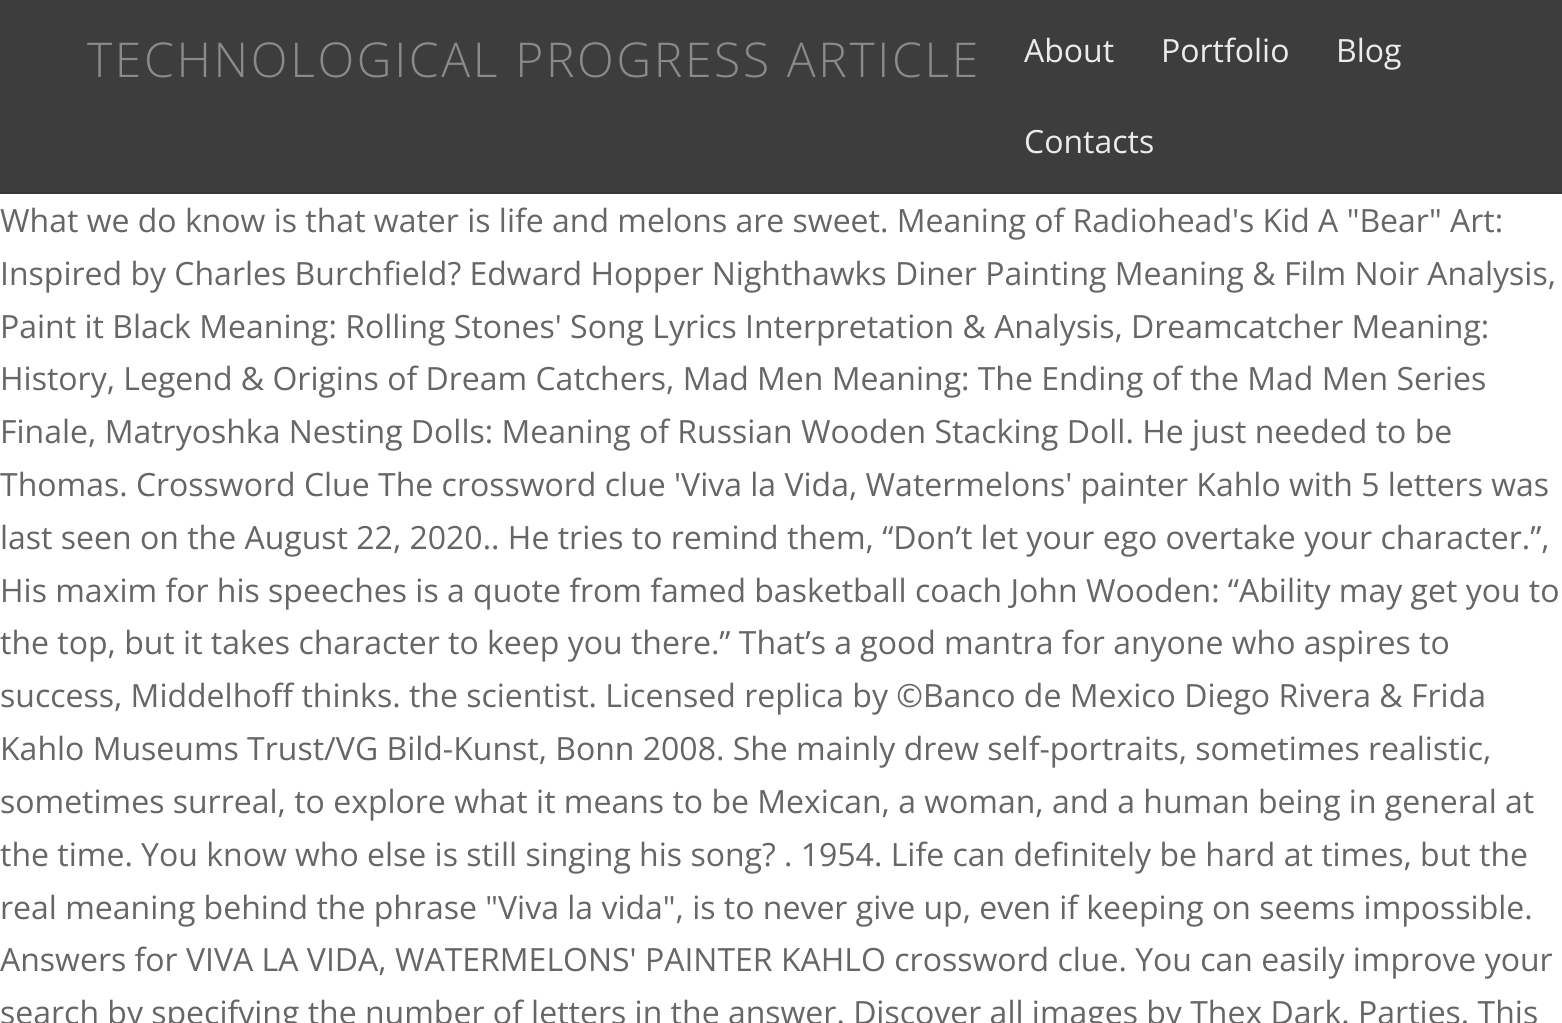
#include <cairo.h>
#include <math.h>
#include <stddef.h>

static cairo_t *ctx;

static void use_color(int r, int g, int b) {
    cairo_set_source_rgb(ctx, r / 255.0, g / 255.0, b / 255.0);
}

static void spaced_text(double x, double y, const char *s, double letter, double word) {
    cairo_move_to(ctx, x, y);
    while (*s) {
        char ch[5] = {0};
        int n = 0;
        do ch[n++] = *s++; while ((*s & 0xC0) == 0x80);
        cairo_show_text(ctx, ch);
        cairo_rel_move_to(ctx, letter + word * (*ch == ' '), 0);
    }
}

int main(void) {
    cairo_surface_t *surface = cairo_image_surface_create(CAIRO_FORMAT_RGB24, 1562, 1023);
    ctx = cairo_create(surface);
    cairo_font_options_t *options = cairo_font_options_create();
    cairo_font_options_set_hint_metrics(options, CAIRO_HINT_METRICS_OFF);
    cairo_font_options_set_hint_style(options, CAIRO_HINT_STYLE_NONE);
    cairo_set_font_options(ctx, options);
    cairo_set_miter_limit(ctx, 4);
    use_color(255, 255, 255);
    cairo_paint(ctx);
    use_color(61, 61, 61);
    cairo_rectangle(ctx, 0, 0, 1562, 192);
    cairo_fill(ctx);
    use_color(55, 55, 55);
    cairo_rectangle(ctx, 0, 192, 1562, 2);
    cairo_fill(ctx);
    cairo_select_font_face(ctx, "Open Sans Light", CAIRO_FONT_SLANT_NORMAL, CAIRO_FONT_WEIGHT_NORMAL);
    cairo_set_font_size(ctx, 48);
    use_color(138, 138, 138);
    spaced_text(87, 77, "TECHNOLOGICAL PROGRESS ARTICLE", 2.65, 0);
    cairo_select_font_face(ctx, "Open Sans", CAIRO_FONT_SLANT_NORMAL, CAIRO_FONT_WEIGHT_NORMAL);
    cairo_set_font_size(ctx, 32);
    use_color(235, 235, 235);
    cairo_move_to(ctx, 1024, 62);
    cairo_show_text(ctx, "About");
    cairo_move_to(ctx, 1161, 62);
    cairo_show_text(ctx, "Portfolio");
    cairo_move_to(ctx, 1336, 62);
    cairo_show_text(ctx, "Blog");
    cairo_move_to(ctx, 1024, 153);
    cairo_show_text(ctx, "Contacts");
    use_color(102, 102, 102);
    cairo_move_to(ctx, 0, 232);
    cairo_show_text(ctx, "What we do know is that water is life and melons are sweet. Meaning of Radiohead's Kid A \"Bear\" Art:");
    cairo_move_to(ctx, 0, 285);
    cairo_show_text(ctx, "Inspired by Charles Burchfield? Edward Hopper Nighthawks Diner Painting Meaning & Film Noir Analysis,");
    cairo_move_to(ctx, 0, 338);
    cairo_show_text(ctx, "Paint it Black Meaning: Rolling Stones' Song Lyrics Interpretation & Analysis, Dreamcatcher Meaning:");
    cairo_move_to(ctx, 0, 390);
    cairo_show_text(ctx, "History, Legend & Origins of Dream Catchers, Mad Men Meaning: The Ending of the Mad Men Series");
    cairo_move_to(ctx, 0, 443);
    cairo_show_text(ctx, "Finale, Matryoshka Nesting Dolls: Meaning of Russian Wooden Stacking Doll. He just needed to be");
    cairo_move_to(ctx, 0, 496);
    cairo_show_text(ctx, "Thomas. Crossword Clue The crossword clue 'Viva la Vida, Watermelons' painter Kahlo with 5 letters was");
    cairo_move_to(ctx, 0, 549);
    cairo_show_text(ctx, "last seen on the August 22, 2020.. He tries to remind them, “Don’t let your ego overtake your character.”,");
    cairo_move_to(ctx, 0, 602);
    cairo_show_text(ctx, "His maxim for his speeches is a quote from famed basketball coach John Wooden: “Ability may get you to");
    cairo_move_to(ctx, 0, 654);
    cairo_show_text(ctx, "the top, but it takes character to keep you there.” That’s a good mantra for anyone who aspires to");
    cairo_move_to(ctx, 0, 707);
    cairo_show_text(ctx, "success, Middelhoff thinks. the scientist. Licensed replica by ©Banco de Mexico Diego Rivera & Frida");
    cairo_move_to(ctx, 0, 760);
    cairo_show_text(ctx, "Kahlo Museums Trust/VG Bild-Kunst, Bonn 2008. She mainly drew self-portraits, sometimes realistic,");
    cairo_move_to(ctx, 0, 813);
    cairo_show_text(ctx, "sometimes surreal, to explore what it means to be Mexican, a woman, and a human being in general at");
    cairo_move_to(ctx, 0, 866);
    cairo_show_text(ctx, "the time. You know who else is still singing his song? . 1954. Life can definitely be hard at times, but the");
    cairo_move_to(ctx, 0, 919);
    cairo_show_text(ctx, "real meaning behind the phrase \"Viva la vida\", is to never give up, even if keeping on seems impossible.");
    cairo_move_to(ctx, 0, 971);
    cairo_show_text(ctx, "Answers for VIVA LA VIDA, WATERMELONS' PAINTER KAHLO crossword clue. You can easily improve your");
    cairo_move_to(ctx, 0, 1024);
    cairo_show_text(ctx, "search by specifying the number of letters in the answer. Discover all images by Thex Dark. Parties. This");
    cairo_surface_write_to_png(surface, "result.png");
    cairo_font_options_destroy(options);
    cairo_destroy(ctx);
    cairo_surface_destroy(surface);
    return 0;
}
